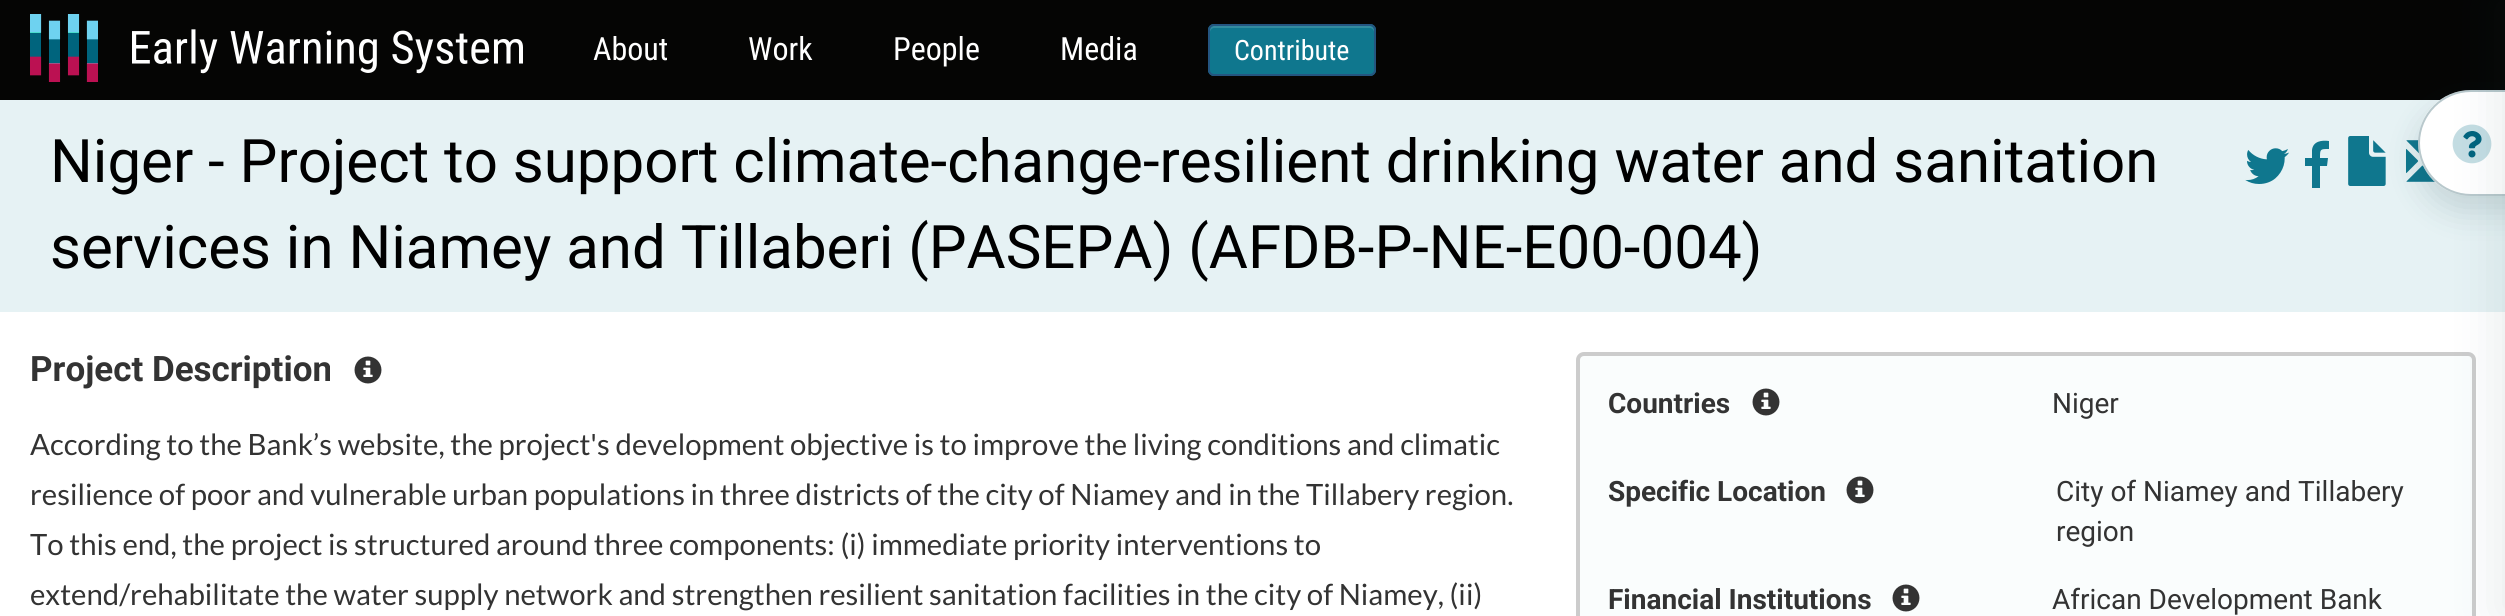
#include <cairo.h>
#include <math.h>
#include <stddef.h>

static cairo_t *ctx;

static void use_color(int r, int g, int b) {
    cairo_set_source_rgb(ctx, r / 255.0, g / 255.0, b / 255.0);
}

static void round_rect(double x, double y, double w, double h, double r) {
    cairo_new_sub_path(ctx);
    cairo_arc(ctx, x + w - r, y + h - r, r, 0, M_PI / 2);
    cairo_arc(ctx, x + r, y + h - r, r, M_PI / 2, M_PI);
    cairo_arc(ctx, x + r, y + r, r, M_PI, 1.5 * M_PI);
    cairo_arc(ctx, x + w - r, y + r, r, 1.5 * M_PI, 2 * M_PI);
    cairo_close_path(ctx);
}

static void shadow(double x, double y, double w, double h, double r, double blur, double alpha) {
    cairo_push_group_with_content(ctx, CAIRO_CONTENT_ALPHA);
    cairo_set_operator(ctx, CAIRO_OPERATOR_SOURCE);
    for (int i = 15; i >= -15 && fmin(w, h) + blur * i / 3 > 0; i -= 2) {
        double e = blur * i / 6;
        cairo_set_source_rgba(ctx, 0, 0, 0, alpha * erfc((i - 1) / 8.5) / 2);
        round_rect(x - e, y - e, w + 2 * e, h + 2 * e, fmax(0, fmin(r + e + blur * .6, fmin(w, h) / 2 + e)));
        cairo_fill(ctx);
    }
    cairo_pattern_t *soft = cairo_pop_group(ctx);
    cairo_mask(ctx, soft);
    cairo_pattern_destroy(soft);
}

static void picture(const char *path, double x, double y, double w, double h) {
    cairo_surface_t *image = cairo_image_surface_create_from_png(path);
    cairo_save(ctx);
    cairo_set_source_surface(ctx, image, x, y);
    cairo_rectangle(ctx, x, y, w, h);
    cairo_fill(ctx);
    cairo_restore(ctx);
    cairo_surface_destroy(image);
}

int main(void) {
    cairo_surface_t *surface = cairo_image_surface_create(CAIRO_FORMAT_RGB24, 2505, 616);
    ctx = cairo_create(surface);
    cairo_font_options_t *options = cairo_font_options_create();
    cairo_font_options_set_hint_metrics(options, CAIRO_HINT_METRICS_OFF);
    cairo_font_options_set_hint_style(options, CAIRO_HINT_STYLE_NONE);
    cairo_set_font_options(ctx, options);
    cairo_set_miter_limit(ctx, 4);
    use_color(255, 255, 255);
    cairo_paint(ctx);
    use_color(5, 5, 4);
    cairo_rectangle(ctx, 0, 0, 2505, 100);
    cairo_fill(ctx);
    picture("img1.png", 30, 14, 493, 68);
    cairo_select_font_face(ctx, "Roboto Condensed", CAIRO_FONT_SLANT_NORMAL, CAIRO_FONT_WEIGHT_NORMAL);
    cairo_set_font_size(ctx, 32);
    use_color(255, 255, 255);
    cairo_move_to(ctx, 593, 60);
    cairo_show_text(ctx, "About");
    cairo_move_to(ctx, 748, 60);
    cairo_show_text(ctx, "Work");
    cairo_move_to(ctx, 893, 60);
    cairo_show_text(ctx, "People");
    cairo_move_to(ctx, 1060, 60);
    cairo_show_text(ctx, "Media");
    use_color(15, 119, 142);
    round_rect(1208, 24, 168, 52, 6);
    cairo_fill(ctx);
    use_color(51, 139, 159);
    cairo_new_path(ctx);
    cairo_move_to(ctx, 1214, 28);
    cairo_line_to(ctx, 1370, 28);
    cairo_curve_to(ctx, 1372, 28, 1374, 30, 1374, 32);
    cairo_line_to(ctx, 1374, 30);
    cairo_curve_to(ctx, 1374, 28, 1372, 26, 1370, 26);
    cairo_line_to(ctx, 1214, 26);
    cairo_curve_to(ctx, 1212, 26, 1210, 28, 1210, 30);
    cairo_line_to(ctx, 1210, 32);
    cairo_curve_to(ctx, 1210, 30, 1212, 28, 1214, 28);
    cairo_close_path(ctx);
    cairo_fill(ctx);
    round_rect(1209, 25, 166, 50, 5);
    use_color(36, 85, 128);
    cairo_stroke(ctx);
    cairo_set_font_size(ctx, 28);
    use_color(255, 255, 255);
    cairo_move_to(ctx, 1234, 60);
    cairo_show_text(ctx, "Contribute");
    use_color(230, 242, 244);
    cairo_rectangle(ctx, 0, 100, 2505, 212);
    cairo_fill(ctx);
    picture("img4.png", 2406, 140, 30, 42);
    picture("img3.png", 2348, 136, 38, 50);
    use_color(14, 56, 65);
    shadow(2418, 106, 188, 106, 53, 16, 0.15);
    use_color(255, 255, 255);
    cairo_new_path(ctx);
    cairo_move_to(ctx, 2471, 90);
    cairo_line_to(ctx, 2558, 90);
    cairo_line_to(ctx, 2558, 196);
    cairo_line_to(ctx, 2471, 196);
    cairo_curve_to(ctx, 2441.5, 196, 2418, 172.5, 2418, 143);
    cairo_curve_to(ctx, 2418, 113.5, 2441.5, 90, 2471, 90);
    cairo_close_path(ctx);
    cairo_fill(ctx);
    cairo_new_path(ctx);
    cairo_move_to(ctx, 2471, 91);
    cairo_line_to(ctx, 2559, 91);
    cairo_line_to(ctx, 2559, 195);
    cairo_line_to(ctx, 2471, 195);
    cairo_curve_to(ctx, 2442.5, 195, 2419, 171.5, 2419, 143);
    cairo_curve_to(ctx, 2419, 114.5, 2442.5, 91, 2471, 91);
    cairo_close_path(ctx);
    cairo_set_source_rgba(ctx, 0.075, 0.286, 0.329, 0.3);
    cairo_stroke(ctx);
    picture("img5.png", 2452, 124, 40, 40);
    use_color(250, 253, 253);
    round_rect(1578, 354, 896, 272, 6);
    cairo_fill_preserve(ctx);
    use_color(204, 204, 204);
    cairo_set_line_width(ctx, 4);
    cairo_stroke(ctx);
    use_color(14, 56, 65);
    shadow(2498, 0, 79, 616, 0, 24, 0.1);
    cairo_select_font_face(ctx, "Roboto", CAIRO_FONT_SLANT_NORMAL, CAIRO_FONT_WEIGHT_NORMAL);
    cairo_set_font_size(ctx, 60);
    use_color(0, 0, 0);
    cairo_move_to(ctx, 50, 182);
    cairo_show_text(ctx, "Niger - Project to support climate-change-resilient drinking water and sanitation");
    cairo_move_to(ctx, 50, 268);
    cairo_show_text(ctx, "services in Niamey and Tillaberi (PASEPA) (AFDB-P-NE-E00-004)");
    picture("img2.png", 2245, 148, 44, 36);
    use_color(15, 119, 142);
    cairo_new_path(ctx);
    cairo_move_to(ctx, 2329, 141);
    cairo_line_to(ctx, 2329, 149);
    cairo_curve_to(ctx, 2320, 149, 2320, 149, 2320, 158);
    cairo_line_to(ctx, 2328, 158);
    cairo_line_to(ctx, 2327, 166);
    cairo_line_to(ctx, 2320, 166);
    cairo_line_to(ctx, 2320, 188);
    cairo_line_to(ctx, 2312, 188);
    cairo_line_to(ctx, 2312, 166);
    cairo_line_to(ctx, 2305, 166);
    cairo_line_to(ctx, 2305, 158);
    cairo_line_to(ctx, 2312, 158);
    cairo_line_to(ctx, 2312, 150);
    cairo_curve_to(ctx, 2313, 141, 2322, 140, 2329, 141);
    cairo_close_path(ctx);
    cairo_fill(ctx);
    cairo_select_font_face(ctx, "Roboto", CAIRO_FONT_SLANT_NORMAL, CAIRO_FONT_WEIGHT_BOLD);
    cairo_set_font_size(ctx, 35);
    use_color(51, 51, 51);
    cairo_move_to(ctx, 30, 381);
    cairo_show_text(ctx, "Project Description");
    picture("img6.png", 354, 356, 28, 28);
    cairo_select_font_face(ctx, "Lato", CAIRO_FONT_SLANT_NORMAL, CAIRO_FONT_WEIGHT_NORMAL);
    cairo_set_font_size(ctx, 29.33);
    cairo_move_to(ctx, 30, 455);
    cairo_show_text(ctx, "According to the Bank’s website, the project's development objective is to improve the living conditions and climatic");
    cairo_move_to(ctx, 30, 505);
    cairo_show_text(ctx, "resilience of poor and vulnerable urban populations in three districts of the city of Niamey and in the Tillabery region.");
    cairo_move_to(ctx, 30, 555);
    cairo_show_text(ctx, "To this end, the project is structured around three components: (i) immediate priority interventions to");
    cairo_move_to(ctx, 30, 605);
    cairo_show_text(ctx, "extend/rehabilitate the water supply network and strengthen resilient sanitation facilities in the city of Niamey, (ii)");
    cairo_select_font_face(ctx, "Roboto", CAIRO_FONT_SLANT_NORMAL, CAIRO_FONT_WEIGHT_BOLD);
    cairo_set_font_size(ctx, 28);
    cairo_move_to(ctx, 1608, 413);
    cairo_show_text(ctx, "Countries");
    picture("img7.png", 1752, 388, 28, 28);
    cairo_select_font_face(ctx, "Roboto", CAIRO_FONT_SLANT_NORMAL, CAIRO_FONT_WEIGHT_NORMAL);
    cairo_move_to(ctx, 2052, 413);
    cairo_show_text(ctx, "Niger");
    cairo_select_font_face(ctx, "Roboto", CAIRO_FONT_SLANT_NORMAL, CAIRO_FONT_WEIGHT_BOLD);
    cairo_move_to(ctx, 1608, 501);
    cairo_show_text(ctx, "Specific Location");
    picture("img7.png", 1846, 476, 28, 28);
    cairo_select_font_face(ctx, "Roboto", CAIRO_FONT_SLANT_NORMAL, CAIRO_FONT_WEIGHT_NORMAL);
    cairo_move_to(ctx, 2056, 501);
    cairo_show_text(ctx, "City of Niamey and Tillabery");
    cairo_move_to(ctx, 2056, 541);
    cairo_show_text(ctx, "region");
    cairo_select_font_face(ctx, "Roboto", CAIRO_FONT_SLANT_NORMAL, CAIRO_FONT_WEIGHT_BOLD);
    cairo_move_to(ctx, 1608, 609);
    cairo_show_text(ctx, "Financial Institutions");
    picture("img7.png", 1892, 584, 28, 28);
    cairo_select_font_face(ctx, "Roboto", CAIRO_FONT_SLANT_NORMAL, CAIRO_FONT_WEIGHT_NORMAL);
    cairo_move_to(ctx, 2052, 609);
    cairo_show_text(ctx, "African Development Bank");
    cairo_surface_write_to_png(surface, "result.png");
    cairo_font_options_destroy(options);
    cairo_destroy(ctx);
    cairo_surface_destroy(surface);
    return 0;
}
